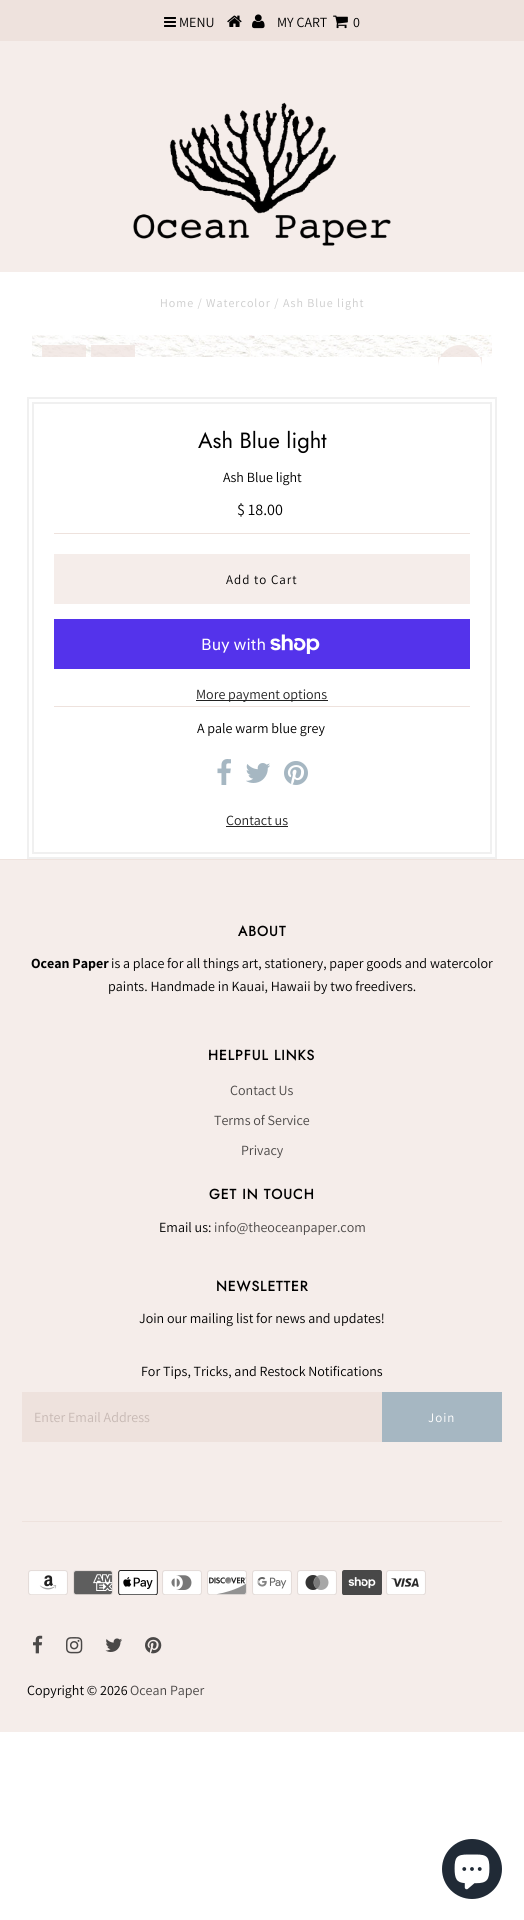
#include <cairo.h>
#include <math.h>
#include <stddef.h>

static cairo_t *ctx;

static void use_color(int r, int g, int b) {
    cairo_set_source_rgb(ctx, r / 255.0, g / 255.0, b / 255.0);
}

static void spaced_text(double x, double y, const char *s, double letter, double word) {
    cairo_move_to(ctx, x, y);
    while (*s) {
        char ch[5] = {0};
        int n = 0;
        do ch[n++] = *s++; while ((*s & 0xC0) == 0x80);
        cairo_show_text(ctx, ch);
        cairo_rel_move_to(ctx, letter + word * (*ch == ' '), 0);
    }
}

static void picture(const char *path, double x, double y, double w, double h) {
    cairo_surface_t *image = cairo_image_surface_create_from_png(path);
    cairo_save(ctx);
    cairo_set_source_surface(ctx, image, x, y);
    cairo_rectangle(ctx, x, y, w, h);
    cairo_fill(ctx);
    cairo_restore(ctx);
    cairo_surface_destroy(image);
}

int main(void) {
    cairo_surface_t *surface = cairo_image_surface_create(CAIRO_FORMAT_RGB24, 524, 1920);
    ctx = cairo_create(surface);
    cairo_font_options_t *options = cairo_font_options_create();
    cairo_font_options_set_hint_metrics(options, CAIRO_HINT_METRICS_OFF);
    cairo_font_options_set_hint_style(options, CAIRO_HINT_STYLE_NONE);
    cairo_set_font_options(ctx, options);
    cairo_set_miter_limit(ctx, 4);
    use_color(255, 255, 255);
    cairo_paint(ctx);
    use_color(238, 226, 221);
    cairo_rectangle(ctx, 0, 0, 524, 41);
    cairo_fill(ctx);
    picture("img1.png", 164, 17, 12, 10);
    cairo_select_font_face(ctx, "Assistant", CAIRO_FONT_SLANT_NORMAL, CAIRO_FONT_WEIGHT_NORMAL);
    cairo_set_font_size(ctx, 14);
    use_color(0, 0, 0);
    cairo_move_to(ctx, 179, 27);
    cairo_show_text(ctx, "MENU");
    picture("img2.png", 227, 15, 15, 12);
    picture("img3.png", 252, 14, 13, 15);
    cairo_move_to(ctx, 277, 27);
    cairo_show_text(ctx, "MY CART");
    picture("img4.png", 333, 15, 15, 14);
    cairo_move_to(ctx, 353, 27);
    cairo_show_text(ctx, "0");
    use_color(245, 237, 234);
    cairo_rectangle(ctx, 0, 41, 524, 231);
    cairo_fill(ctx);
    picture("img5.png", 133, 102, 258, 144);
    cairo_set_font_size(ctx, 12);
    use_color(204, 204, 204);
    spaced_text(160, 307, "Home / Watercolor / Ash Blue light", 1, 0);
    picture("img6.png", 32, 335, 460, 22);
    cairo_set_source_rgba(ctx, 0.933, 0.886, 0.867, 0.7);
    cairo_new_path(ctx);
    cairo_move_to(ctx, 460, 345);
    cairo_curve_to(ctx, 472, 345, 482, 355, 482, 367);
    cairo_line_to(ctx, 482, 357);
    cairo_line_to(ctx, 438, 357);
    cairo_line_to(ctx, 438, 367);
    cairo_curve_to(ctx, 438, 355, 448, 345, 460, 345);
    cairo_close_path(ctx);
    cairo_fill(ctx);
    cairo_rectangle(ctx, 42, 345, 44, 12);
    cairo_fill(ctx);
    cairo_rectangle(ctx, 91, 345, 44, 12);
    cairo_fill(ctx);
    cairo_rectangle(ctx, 28, 398, 468, 460);
    use_color(240, 240, 240);
    cairo_stroke(ctx);
    cairo_rectangle(ctx, 33, 403, 458, 450);
    cairo_stroke(ctx);
    cairo_select_font_face(ctx, "Jost", CAIRO_FONT_SLANT_NORMAL, CAIRO_FONT_WEIGHT_NORMAL);
    cairo_set_font_size(ctx, 22);
    use_color(0, 0, 0);
    cairo_move_to(ctx, 198, 448);
    cairo_show_text(ctx, "Ash Blue light");
    cairo_select_font_face(ctx, "Assistant", CAIRO_FONT_SLANT_NORMAL, CAIRO_FONT_WEIGHT_NORMAL);
    cairo_set_font_size(ctx, 14);
    cairo_move_to(ctx, 223, 482);
    cairo_show_text(ctx, "Ash Blue light");
    use_color(238, 226, 221);
    cairo_rectangle(ctx, 54, 706, 416, 1);
    cairo_fill(ctx);
    cairo_rectangle(ctx, 54, 533, 416, 1);
    cairo_fill(ctx);
    cairo_set_font_size(ctx, 16);
    use_color(0, 0, 0);
    cairo_move_to(ctx, 237, 515);
    cairo_show_text(ctx, "$ 18.00");
    use_color(245, 237, 234);
    cairo_rectangle(ctx, 54, 554, 416, 50);
    cairo_fill(ctx);
    cairo_set_font_size(ctx, 13);
    use_color(0, 0, 0);
    spaced_text(226, 584, "Add to Cart", 1, 0);
    use_color(84, 51, 235);
    cairo_rectangle(ctx, 54, 619, 416, 50);
    cairo_fill(ctx);
    cairo_select_font_face(ctx, "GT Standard", CAIRO_FONT_SLANT_NORMAL, CAIRO_FONT_WEIGHT_NORMAL);
    cairo_set_font_size(ctx, 16);
    use_color(255, 255, 255);
    cairo_move_to(ctx, 201, 650);
    cairo_show_text(ctx, "Buy with");
    picture("img7.png", 270, 634, 50, 20);
    use_color(34, 34, 34);
    cairo_rectangle(ctx, 196, 700, 132, 1);
    cairo_fill(ctx);
    cairo_select_font_face(ctx, "Assistant", CAIRO_FONT_SLANT_NORMAL, CAIRO_FONT_WEIGHT_NORMAL);
    cairo_set_font_size(ctx, 14);
    cairo_move_to(ctx, 196, 699);
    cairo_show_text(ctx, "More payment options");
    use_color(0, 0, 0);
    cairo_move_to(ctx, 197, 733);
    cairo_show_text(ctx, "A pale warm blue grey");
    picture("img8.png", 217, 759, 14, 26);
    picture("img9.png", 246, 763, 24, 20);
    picture("img10.png", 284, 761, 24, 24);
    use_color(34, 34, 34);
    cairo_move_to(ctx, 226, 825);
    cairo_show_text(ctx, "Contact us");
    cairo_rectangle(ctx, 226, 826, 62, 1);
    cairo_fill(ctx);
    use_color(245, 237, 234);
    cairo_rectangle(ctx, 0, 860, 524, 872);
    cairo_fill(ctx);
    use_color(238, 226, 221);
    cairo_rectangle(ctx, 0, 859, 524, 1);
    cairo_fill(ctx);
    cairo_select_font_face(ctx, "Jost", CAIRO_FONT_SLANT_NORMAL, CAIRO_FONT_WEIGHT_BOLD);
    use_color(0, 0, 0);
    spaced_text(238, 936, "ABOUT", 1, 0);
    cairo_select_font_face(ctx, "Assistant", CAIRO_FONT_SLANT_NORMAL, CAIRO_FONT_WEIGHT_BOLD);
    cairo_move_to(ctx, 31, 968);
    cairo_show_text(ctx, "Ocean Paper");
    cairo_select_font_face(ctx, "Assistant", CAIRO_FONT_SLANT_NORMAL, CAIRO_FONT_WEIGHT_NORMAL);
    cairo_move_to(ctx, 111, 968);
    cairo_show_text(ctx, "is a place for all things art, stationery, paper goods and watercolor");
    cairo_move_to(ctx, 108, 991);
    cairo_show_text(ctx, "paints. Handmade in Kauai, Hawaii by two freedivers.");
    cairo_select_font_face(ctx, "Jost", CAIRO_FONT_SLANT_NORMAL, CAIRO_FONT_WEIGHT_BOLD);
    spaced_text(208, 1060, "HELPFUL LINKS", 1, 0);
    cairo_select_font_face(ctx, "Assistant", CAIRO_FONT_SLANT_NORMAL, CAIRO_FONT_WEIGHT_NORMAL);
    use_color(74, 71, 70);
    cairo_move_to(ctx, 230, 1095);
    cairo_show_text(ctx, "Contact Us");
    cairo_move_to(ctx, 214, 1125);
    cairo_show_text(ctx, "Terms of Service");
    cairo_move_to(ctx, 241, 1155);
    cairo_show_text(ctx, "Privacy");
    cairo_select_font_face(ctx, "Jost", CAIRO_FONT_SLANT_NORMAL, CAIRO_FONT_WEIGHT_BOLD);
    use_color(0, 0, 0);
    spaced_text(209, 1199, "GET IN TOUCH", 1, 0);
    cairo_select_font_face(ctx, "Assistant", CAIRO_FONT_SLANT_NORMAL, CAIRO_FONT_WEIGHT_NORMAL);
    cairo_move_to(ctx, 159, 1232);
    cairo_show_text(ctx, "Email us:");
    use_color(74, 71, 70);
    cairo_move_to(ctx, 214, 1232);
    cairo_show_text(ctx, "info@theoceanpaper.com");
    cairo_select_font_face(ctx, "Jost", CAIRO_FONT_SLANT_NORMAL, CAIRO_FONT_WEIGHT_BOLD);
    use_color(0, 0, 0);
    spaced_text(216, 1291, "NEWSLETTER", 1, 0);
    cairo_select_font_face(ctx, "Assistant", CAIRO_FONT_SLANT_NORMAL, CAIRO_FONT_WEIGHT_NORMAL);
    cairo_move_to(ctx, 139, 1323);
    cairo_show_text(ctx, "Join our mailing list for news and updates!");
    cairo_move_to(ctx, 141, 1376);
    cairo_show_text(ctx, "For Tips, Tricks, and Restock Notifications");
    use_color(238, 226, 221);
    cairo_rectangle(ctx, 22, 1392, 360, 50);
    cairo_fill(ctx);
    use_color(199, 185, 180);
    cairo_move_to(ctx, 34, 1422);
    cairo_show_text(ctx, "Enter Email Address");
    use_color(166, 183, 194);
    cairo_rectangle(ctx, 382, 1392, 120, 50);
    cairo_fill(ctx);
    cairo_set_font_size(ctx, 13);
    use_color(255, 255, 255);
    spaced_text(428, 1422, "Join", 1, 0);
    use_color(238, 226, 221);
    cairo_rectangle(ctx, 22, 1521, 480, 1);
    cairo_fill(ctx);
    picture("img11.png", 28, 1570, 40, 25);
    picture("img12.png", 73, 1570, 40, 25);
    picture("img13.png", 118, 1570, 40, 25);
    picture("img14.png", 162, 1570, 40, 25);
    picture("img15.png", 207, 1570, 40, 25);
    picture("img16.png", 252, 1570, 40, 25);
    picture("img17.png", 297, 1570, 40, 25);
    picture("img18.png", 342, 1570, 40, 25);
    picture("img19.png", 386, 1570, 40, 25);
    picture("img20.png", 33, 1635, 10, 19);
    picture("img21.png", 66, 1637, 17, 17);
    picture("img22.png", 105, 1638, 17, 14);
    picture("img23.png", 145, 1637, 17, 17);
    cairo_set_font_size(ctx, 14);
    use_color(0, 0, 0);
    cairo_move_to(ctx, 27, 1695);
    cairo_show_text(ctx, "Copyright © 2026");
    use_color(74, 71, 70);
    cairo_move_to(ctx, 130, 1695);
    cairo_show_text(ctx, "Ocean Paper");
    use_color(32, 42, 54);
    cairo_new_path(ctx);
    cairo_arc(ctx, 472, 1869, 30, 0, 2 * M_PI);
    cairo_fill(ctx);
    picture("img24.png", 454, 1854, 36, 36);
    cairo_surface_write_to_png(surface, "result.png");
    cairo_font_options_destroy(options);
    cairo_destroy(ctx);
    cairo_surface_destroy(surface);
    return 0;
}
